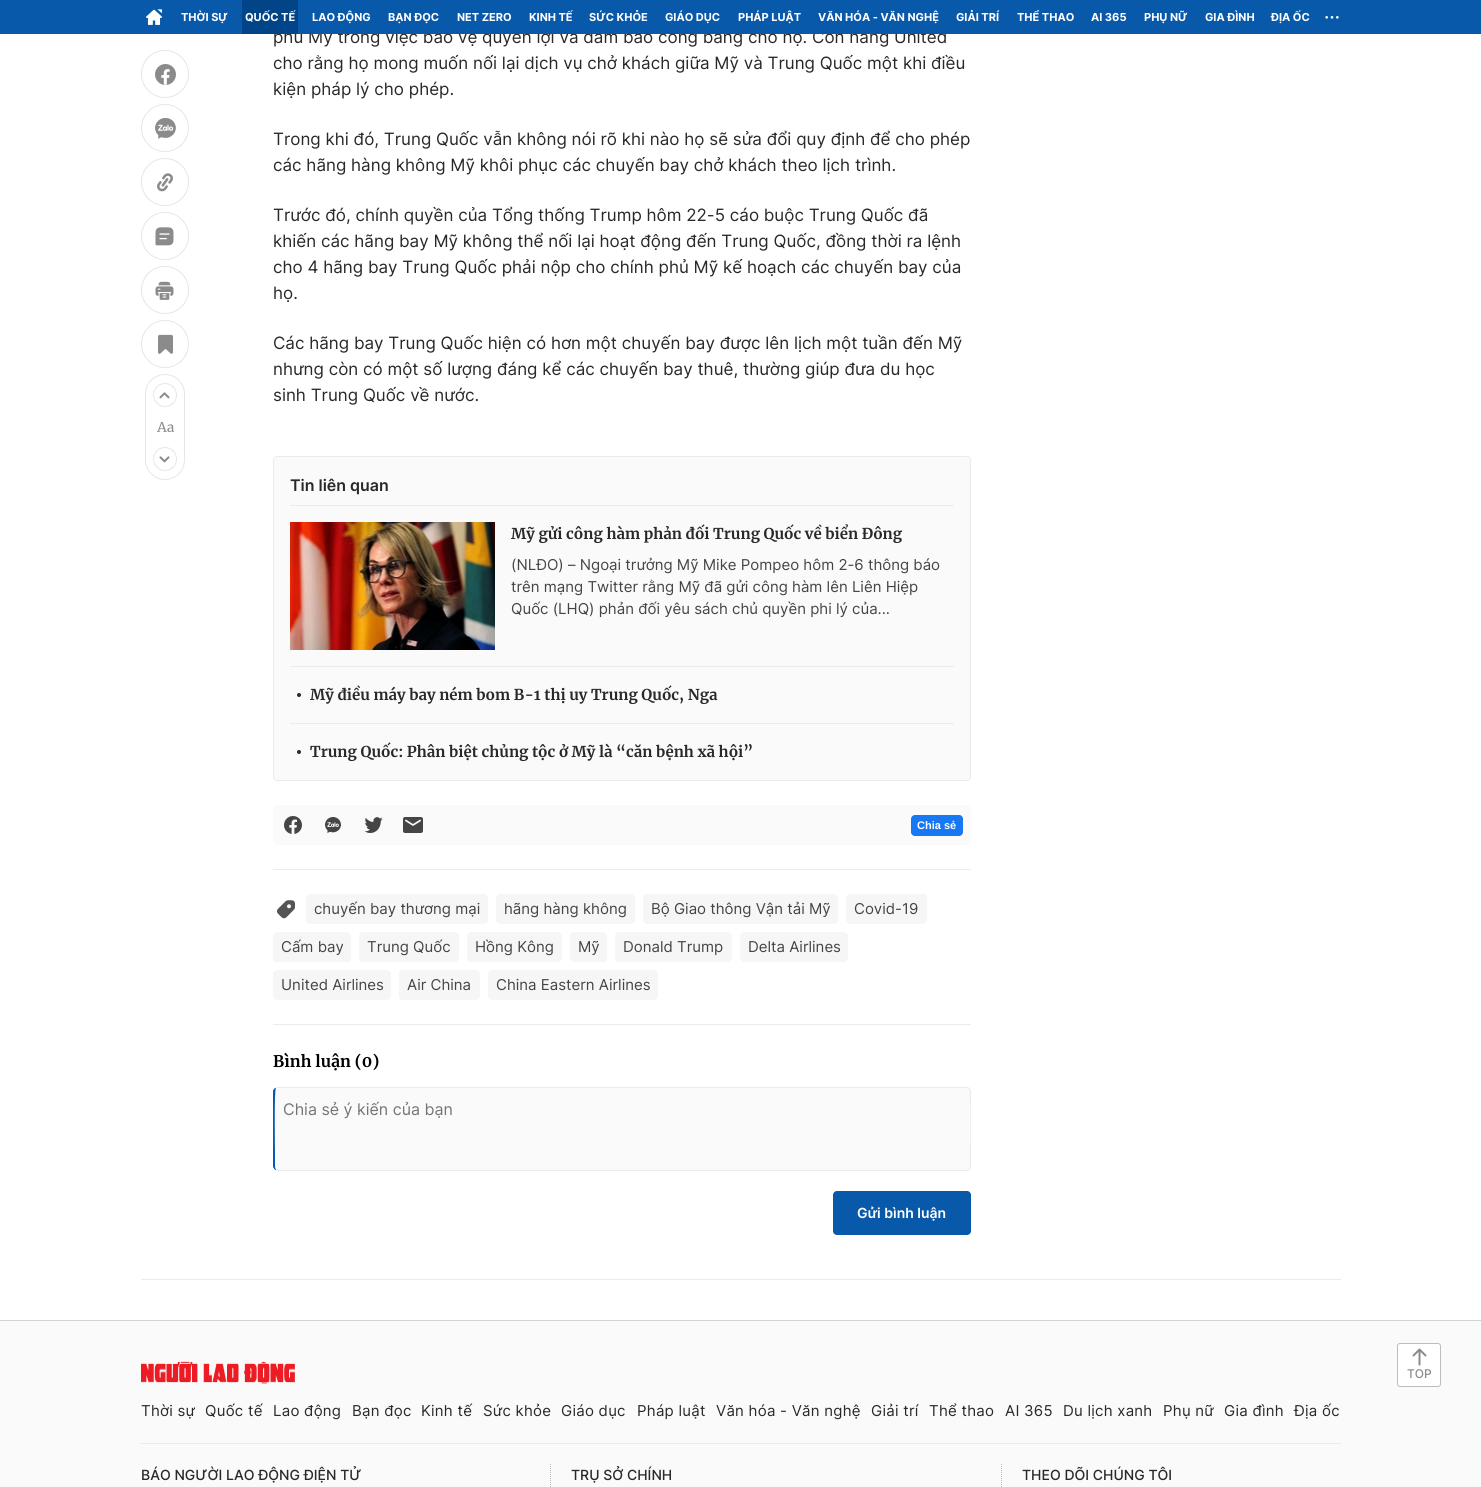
#include <cairo.h>
#include <math.h>
#include <stddef.h>

static cairo_t *ctx;

static void use_color(int r, int g, int b) {
    cairo_set_source_rgb(ctx, r / 255.0, g / 255.0, b / 255.0);
}

static void spaced_text(double x, double y, const char *s, double letter, double word) {
    cairo_move_to(ctx, x, y);
    while (*s) {
        char ch[5] = {0};
        int n = 0;
        do ch[n++] = *s++; while ((*s & 0xC0) == 0x80);
        cairo_show_text(ctx, ch);
        cairo_rel_move_to(ctx, letter + word * (*ch == ' '), 0);
    }
}

static void round_rect(double x, double y, double w, double h, double r) {
    cairo_new_sub_path(ctx);
    cairo_arc(ctx, x + w - r, y + h - r, r, 0, M_PI / 2);
    cairo_arc(ctx, x + r, y + h - r, r, M_PI / 2, M_PI);
    cairo_arc(ctx, x + r, y + r, r, M_PI, 1.5 * M_PI);
    cairo_arc(ctx, x + w - r, y + r, r, 1.5 * M_PI, 2 * M_PI);
    cairo_close_path(ctx);
}

static void picture(const char *path, double x, double y, double w, double h) {
    cairo_surface_t *image = cairo_image_surface_create_from_png(path);
    cairo_save(ctx);
    cairo_set_source_surface(ctx, image, x, y);
    cairo_rectangle(ctx, x, y, w, h);
    cairo_fill(ctx);
    cairo_restore(ctx);
    cairo_surface_destroy(image);
}

int main(void) {
    cairo_surface_t *surface = cairo_image_surface_create(CAIRO_FORMAT_RGB24, 1481, 1487);
    ctx = cairo_create(surface);
    cairo_font_options_t *options = cairo_font_options_create();
    cairo_font_options_set_hint_metrics(options, CAIRO_HINT_METRICS_OFF);
    cairo_font_options_set_hint_style(options, CAIRO_HINT_STYLE_NONE);
    cairo_set_font_options(ctx, options);
    cairo_set_miter_limit(ctx, 4);
    use_color(255, 255, 255);
    cairo_paint(ctx);
    cairo_select_font_face(ctx, "Inter", CAIRO_FONT_SLANT_NORMAL, CAIRO_FONT_WEIGHT_NORMAL);
    cairo_set_font_size(ctx, 17);
    use_color(41, 41, 41);
    cairo_move_to(ctx, 273, 43);
    cairo_show_text(ctx, "phủ Mỹ trong việc bảo vệ quyền lợi và đảm bảo công bằng cho họ. Còn hãng United");
    use_color(9, 89, 171);
    cairo_rectangle(ctx, 0, 0, 1481, 34);
    cairo_fill(ctx);
    picture("img1.png", 146, 9, 16, 16);
    cairo_select_font_face(ctx, "Inter", CAIRO_FONT_SLANT_NORMAL, CAIRO_FONT_WEIGHT_BOLD);
    cairo_set_font_size(ctx, 11);
    use_color(255, 255, 255);
    cairo_move_to(ctx, 181, 21);
    cairo_show_text(ctx, "THỜI SỰ");
    use_color(2, 68, 136);
    cairo_rectangle(ctx, 242, 0, 56, 34);
    cairo_fill(ctx);
    use_color(255, 255, 255);
    cairo_move_to(ctx, 245, 21);
    cairo_show_text(ctx, "QUỐC TẾ");
    cairo_move_to(ctx, 312, 21);
    cairo_show_text(ctx, "LAO ĐỘNG");
    cairo_move_to(ctx, 388, 21);
    cairo_show_text(ctx, "BẠN ĐỌC");
    cairo_move_to(ctx, 457, 21);
    cairo_show_text(ctx, "NET ZERO");
    cairo_move_to(ctx, 529, 21);
    cairo_show_text(ctx, "KINH TẾ");
    cairo_move_to(ctx, 589, 21);
    cairo_show_text(ctx, "SỨC KHỎE");
    cairo_move_to(ctx, 665, 21);
    cairo_show_text(ctx, "GIÁO DỤC");
    cairo_move_to(ctx, 738, 21);
    cairo_show_text(ctx, "PHÁP LUẬT");
    cairo_move_to(ctx, 818, 21);
    cairo_show_text(ctx, "VĂN HÓA - VĂN NGHỆ");
    cairo_move_to(ctx, 956, 21);
    cairo_show_text(ctx, "GIẢI TRÍ");
    cairo_move_to(ctx, 1017, 21);
    cairo_show_text(ctx, "THỂ THAO");
    cairo_move_to(ctx, 1091, 21);
    cairo_show_text(ctx, "AI 365");
    cairo_move_to(ctx, 1144, 21);
    cairo_show_text(ctx, "PHỤ NỮ");
    cairo_move_to(ctx, 1205, 21);
    cairo_show_text(ctx, "GIA ĐÌNH");
    cairo_move_to(ctx, 1271, 21);
    cairo_show_text(ctx, "ĐỊA ỐC");
    picture("img2.png", 1325, 16, 14, 3);
    use_color(235, 235, 235);
    cairo_rectangle(ctx, 141, 1279, 1200, 1);
    cairo_fill(ctx);
    cairo_arc(ctx, 165, 74, 23.5, 0, 2 * M_PI);
    use_color(230, 230, 230);
    cairo_set_line_width(ctx, 1);
    cairo_stroke(ctx);
    picture("img3.png", 155, 64, 21, 21);
    cairo_arc(ctx, 165, 128, 23.5, 0, 2 * M_PI);
    cairo_stroke(ctx);
    picture("img4.png", 155, 118, 21, 21);
    cairo_arc(ctx, 165, 182, 23.5, 0, 2 * M_PI);
    cairo_stroke(ctx);
    picture("img5.png", 157, 173, 16, 19);
    cairo_arc(ctx, 165, 236, 23.5, 0, 2 * M_PI);
    cairo_stroke(ctx);
    picture("img6.png", 155, 227, 19, 19);
    cairo_arc(ctx, 165, 290, 23.5, 0, 2 * M_PI);
    cairo_stroke(ctx);
    picture("img7.png", 155, 281, 19, 19);
    cairo_arc(ctx, 165, 344, 23.5, 0, 2 * M_PI);
    cairo_stroke(ctx);
    picture("img8.png", 158, 334, 15, 20);
    round_rect(145.5, 374.5, 39, 105, 19.5);
    cairo_stroke(ctx);
    cairo_arc(ctx, 165, 395, 11.5, 0, 2 * M_PI);
    cairo_stroke(ctx);
    picture("img9.png", 159, 392, 11, 7);
    picture("img10.png", 157, 422, 17, 10);
    cairo_arc(ctx, 165, 459, 11.5, 0, 2 * M_PI);
    cairo_stroke(ctx);
    picture("img11.png", 159, 456, 11, 7);
    cairo_select_font_face(ctx, "Inter", CAIRO_FONT_SLANT_NORMAL, CAIRO_FONT_WEIGHT_NORMAL);
    cairo_set_font_size(ctx, 17);
    use_color(41, 41, 41);
    cairo_move_to(ctx, 273, 69);
    cairo_show_text(ctx, "cho rằng họ mong muốn nối lại dịch vụ chở khách giữa Mỹ và Trung Quốc một khi điều");
    cairo_move_to(ctx, 273, 95);
    cairo_show_text(ctx, "kiện pháp lý cho phép.");
    cairo_move_to(ctx, 273, 145);
    cairo_show_text(ctx, "Trong khi đó, Trung Quốc vẫn không nói rõ khi nào họ sẽ sửa đổi quy định để cho phép");
    cairo_move_to(ctx, 273, 171);
    cairo_show_text(ctx, "các hãng hàng không Mỹ khôi phục các chuyến bay chở khách theo lịch trình.");
    cairo_move_to(ctx, 273, 221);
    cairo_show_text(ctx, "Trước đó, chính quyền của Tổng thống Trump hôm 22-5 cáo buộc Trung Quốc đã");
    cairo_move_to(ctx, 273, 247);
    cairo_show_text(ctx, "khiến các hãng bay Mỹ không thể nối lại hoạt động đến Trung Quốc, đồng thời ra lệnh");
    cairo_move_to(ctx, 273, 273);
    cairo_show_text(ctx, "cho 4 hãng bay Trung Quốc phải nộp cho chính phủ Mỹ kế hoạch các chuyến bay của");
    cairo_move_to(ctx, 273, 299);
    cairo_show_text(ctx, "họ.");
    cairo_move_to(ctx, 273, 349);
    cairo_show_text(ctx, "Các hãng bay Trung Quốc hiện có hơn một chuyến bay được lên lịch một tuần đến Mỹ");
    cairo_move_to(ctx, 273, 375);
    cairo_show_text(ctx, "nhưng còn có một số lượng đáng kể các chuyến bay thuê, thường giúp đưa du học");
    cairo_move_to(ctx, 273, 401);
    cairo_show_text(ctx, "sinh Trung Quốc về nước.");
    use_color(250, 250, 250);
    round_rect(273.5, 456.5, 697, 324, 3.5);
    cairo_fill_preserve(ctx);
    use_color(235, 235, 235);
    cairo_stroke(ctx);
    cairo_rectangle(ctx, 290, 505, 664, 1);
    cairo_fill(ctx);
    cairo_select_font_face(ctx, "Inter SemiBold", CAIRO_FONT_SLANT_NORMAL, CAIRO_FONT_WEIGHT_NORMAL);
    cairo_set_font_size(ctx, 16);
    use_color(41, 41, 41);
    cairo_move_to(ctx, 290, 491);
    cairo_show_text(ctx, "Tin liên quan");
    picture("img12.png", 290, 522, 205, 128);
    cairo_select_font_face(ctx, "Merriweather", CAIRO_FONT_SLANT_NORMAL, CAIRO_FONT_WEIGHT_BOLD);
    cairo_set_font_size(ctx, 15);
    cairo_move_to(ctx, 511, 539);
    cairo_show_text(ctx, "Mỹ gửi công hàm phản đối Trung Quốc về biển Đông");
    cairo_select_font_face(ctx, "Inter", CAIRO_FONT_SLANT_NORMAL, CAIRO_FONT_WEIGHT_NORMAL);
    use_color(69, 69, 69);
    cairo_move_to(ctx, 511, 570);
    cairo_show_text(ctx, "(NLĐO) – Ngoại trưởng Mỹ Mike Pompeo hôm 2-6 thông báo");
    cairo_move_to(ctx, 511, 592);
    cairo_show_text(ctx, "trên mạng Twitter rằng Mỹ đã gửi công hàm lên Liên Hiệp");
    cairo_move_to(ctx, 511, 614);
    cairo_show_text(ctx, "Quốc (LHQ) phản đối yêu sách chủ quyền phi lý của...");
    use_color(235, 235, 235);
    cairo_rectangle(ctx, 290, 666, 664, 1);
    cairo_fill(ctx);
    use_color(41, 41, 41);
    cairo_arc(ctx, 299, 695, 2, 0, 2 * M_PI);
    cairo_fill(ctx);
    cairo_select_font_face(ctx, "Merriweather", CAIRO_FONT_SLANT_NORMAL, CAIRO_FONT_WEIGHT_BOLD);
    cairo_move_to(ctx, 310, 700);
    cairo_show_text(ctx, "Mỹ điều máy bay ném bom B-1 thị uy Trung Quốc, Nga");
    use_color(235, 235, 235);
    cairo_rectangle(ctx, 290, 723, 664, 1);
    cairo_fill(ctx);
    use_color(41, 41, 41);
    cairo_arc(ctx, 299, 752, 2, 0, 2 * M_PI);
    cairo_fill(ctx);
    cairo_move_to(ctx, 310, 757);
    cairo_show_text(ctx, "Trung Quốc: Phân biệt chủng tộc ở Mỹ là “căn bệnh xã hội”");
    use_color(250, 250, 250);
    round_rect(273, 805, 698, 40, 4);
    cairo_fill(ctx);
    picture("img13.png", 284, 816, 18, 18);
    picture("img14.png", 325, 817, 16, 16);
    picture("img15.png", 364, 817, 19, 16);
    picture("img16.png", 403, 817, 20, 16);
    use_color(24, 119, 242);
    round_rect(911, 815, 52, 21, 4);
    cairo_fill(ctx);
    cairo_select_font_face(ctx, "Liberation Sans", CAIRO_FONT_SLANT_NORMAL, CAIRO_FONT_WEIGHT_BOLD);
    cairo_set_font_size(ctx, 11);
    use_color(255, 255, 255);
    cairo_move_to(ctx, 917, 829);
    cairo_show_text(ctx, "Chia sẻ");
    use_color(235, 235, 235);
    cairo_rectangle(ctx, 273, 869, 698, 1);
    cairo_fill(ctx);
    cairo_rectangle(ctx, 273, 1024, 698, 1);
    cairo_fill(ctx);
    picture("img17.png", 277, 900, 18, 19);
    use_color(246, 246, 246);
    round_rect(306, 894, 182, 30, 4);
    cairo_fill(ctx);
    cairo_select_font_face(ctx, "Inter", CAIRO_FONT_SLANT_NORMAL, CAIRO_FONT_WEIGHT_NORMAL);
    cairo_set_font_size(ctx, 15);
    use_color(69, 69, 69);
    cairo_move_to(ctx, 314, 914);
    cairo_show_text(ctx, "chuyến bay thương mại");
    use_color(246, 246, 246);
    round_rect(496, 894, 139, 30, 4);
    cairo_fill(ctx);
    use_color(69, 69, 69);
    cairo_move_to(ctx, 504, 914);
    cairo_show_text(ctx, "hãng hàng không");
    use_color(246, 246, 246);
    round_rect(643, 894, 195, 30, 4);
    cairo_fill(ctx);
    use_color(69, 69, 69);
    cairo_move_to(ctx, 651, 914);
    cairo_show_text(ctx, "Bộ Giao thông Vận tải Mỹ");
    use_color(246, 246, 246);
    round_rect(846, 894, 81, 30, 4);
    cairo_fill(ctx);
    use_color(69, 69, 69);
    cairo_move_to(ctx, 854, 914);
    cairo_show_text(ctx, "Covid-19");
    use_color(246, 246, 246);
    round_rect(273, 932, 78, 30, 4);
    cairo_fill(ctx);
    use_color(69, 69, 69);
    cairo_move_to(ctx, 281, 952);
    cairo_show_text(ctx, "Cấm bay");
    use_color(246, 246, 246);
    round_rect(359, 932, 100, 30, 4);
    cairo_fill(ctx);
    use_color(69, 69, 69);
    cairo_move_to(ctx, 367, 952);
    cairo_show_text(ctx, "Trung Quốc");
    use_color(246, 246, 246);
    round_rect(467, 932, 95, 30, 4);
    cairo_fill(ctx);
    use_color(69, 69, 69);
    cairo_move_to(ctx, 475, 952);
    cairo_show_text(ctx, "Hồng Kông");
    use_color(246, 246, 246);
    round_rect(570, 932, 37, 30, 4);
    cairo_fill(ctx);
    use_color(69, 69, 69);
    cairo_move_to(ctx, 578, 952);
    cairo_show_text(ctx, "Mỹ");
    use_color(246, 246, 246);
    round_rect(615, 932, 117, 30, 4);
    cairo_fill(ctx);
    use_color(69, 69, 69);
    cairo_move_to(ctx, 623, 952);
    cairo_show_text(ctx, "Donald Trump");
    use_color(246, 246, 246);
    round_rect(740, 932, 108, 30, 4);
    cairo_fill(ctx);
    use_color(69, 69, 69);
    cairo_move_to(ctx, 748, 952);
    cairo_show_text(ctx, "Delta Airlines");
    use_color(246, 246, 246);
    round_rect(273, 970, 118, 30, 4);
    cairo_fill(ctx);
    use_color(69, 69, 69);
    cairo_move_to(ctx, 281, 990);
    cairo_show_text(ctx, "United Airlines");
    use_color(246, 246, 246);
    round_rect(399, 970, 81, 30, 4);
    cairo_fill(ctx);
    use_color(69, 69, 69);
    cairo_move_to(ctx, 407, 990);
    cairo_show_text(ctx, "Air China");
    use_color(246, 246, 246);
    round_rect(488, 970, 170, 30, 4);
    cairo_fill(ctx);
    use_color(69, 69, 69);
    cairo_move_to(ctx, 496, 990);
    cairo_show_text(ctx, "China Eastern Airlines");
    cairo_select_font_face(ctx, "Merriweather", CAIRO_FONT_SLANT_NORMAL, CAIRO_FONT_WEIGHT_BOLD);
    cairo_set_font_size(ctx, 16);
    use_color(0, 0, 0);
    cairo_move_to(ctx, 273, 1067);
    cairo_show_text(ctx, "Bình luận (0)");
    use_color(250, 250, 250);
    cairo_new_path(ctx);
    cairo_move_to(ctx, 277, 1088);
    cairo_line_to(ctx, 967, 1088);
    cairo_curve_to(ctx, 969, 1088, 970, 1089, 970, 1091);
    cairo_line_to(ctx, 970, 1167);
    cairo_curve_to(ctx, 970, 1169, 969, 1170, 967, 1170);
    cairo_line_to(ctx, 277, 1170);
    cairo_curve_to(ctx, 276, 1170, 275, 1169, 275, 1167);
    cairo_line_to(ctx, 275, 1091);
    cairo_curve_to(ctx, 275, 1089, 276, 1088, 277, 1088);
    cairo_close_path(ctx);
    cairo_fill(ctx);
    use_color(233, 235, 236);
    cairo_new_path(ctx);
    cairo_move_to(ctx, 277, 1087);
    cairo_line_to(ctx, 275, 1088);
    cairo_line_to(ctx, 276, 1088);
    cairo_line_to(ctx, 277, 1088);
    cairo_line_to(ctx, 967, 1088);
    cairo_line_to(ctx, 969, 1089);
    cairo_line_to(ctx, 970, 1088);
    cairo_line_to(ctx, 967, 1087);
    cairo_close_path(ctx);
    cairo_fill(ctx);
    cairo_new_path(ctx);
    cairo_move_to(ctx, 971, 1167);
    cairo_line_to(ctx, 971, 1091);
    cairo_line_to(ctx, 970, 1088);
    cairo_line_to(ctx, 969, 1089);
    cairo_curve_to(ctx, 971, 1091, 970, 1147, 970, 1154);
    cairo_line_to(ctx, 970, 1167);
    cairo_line_to(ctx, 969, 1169);
    cairo_line_to(ctx, 970, 1170);
    cairo_close_path(ctx);
    cairo_fill(ctx);
    cairo_new_path(ctx);
    cairo_move_to(ctx, 277, 1171);
    cairo_line_to(ctx, 967, 1171);
    cairo_line_to(ctx, 970, 1170);
    cairo_line_to(ctx, 969, 1169);
    cairo_line_to(ctx, 967, 1170);
    cairo_line_to(ctx, 277, 1170);
    cairo_line_to(ctx, 276, 1170);
    cairo_line_to(ctx, 275, 1170);
    cairo_close_path(ctx);
    cairo_fill(ctx);
    use_color(0, 91, 178);
    cairo_new_path(ctx);
    cairo_move_to(ctx, 273, 1091);
    cairo_line_to(ctx, 273, 1167);
    cairo_line_to(ctx, 275, 1170);
    cairo_line_to(ctx, 276, 1170);
    cairo_line_to(ctx, 275, 1167);
    cairo_line_to(ctx, 275, 1154);
    cairo_curve_to(ctx, 275, 1147, 274, 1090, 276, 1088);
    cairo_line_to(ctx, 275, 1088);
    cairo_curve_to(ctx, 274, 1089, 273, 1090, 273, 1091);
    cairo_close_path(ctx);
    cairo_fill(ctx);
    cairo_select_font_face(ctx, "Inter", CAIRO_FONT_SLANT_NORMAL, CAIRO_FONT_WEIGHT_NORMAL);
    use_color(117, 117, 117);
    cairo_move_to(ctx, 283, 1115);
    cairo_show_text(ctx, "Chia sẻ ý kiến của bạn");
    use_color(9, 89, 171);
    round_rect(833, 1191, 138, 44, 4);
    cairo_fill(ctx);
    cairo_select_font_face(ctx, "Inter SemiBold", CAIRO_FONT_SLANT_NORMAL, CAIRO_FONT_WEIGHT_NORMAL);
    cairo_set_font_size(ctx, 14);
    use_color(255, 255, 255);
    cairo_move_to(ctx, 857, 1218);
    cairo_show_text(ctx, "Gửi bình luận");
    use_color(250, 250, 250);
    cairo_rectangle(ctx, 0, 1321, 1481, 166);
    cairo_fill(ctx);
    use_color(255, 255, 255);
    round_rect(1397.5, 1343.5, 43, 43, 2.5);
    cairo_fill_preserve(ctx);
    use_color(189, 189, 189);
    cairo_stroke(ctx);
    picture("img18.png", 1412, 1348, 15, 18);
    cairo_select_font_face(ctx, "Inter Medium", CAIRO_FONT_SLANT_NORMAL, CAIRO_FONT_WEIGHT_NORMAL);
    cairo_set_font_size(ctx, 12);
    use_color(139, 139, 139);
    cairo_move_to(ctx, 1407, 1378);
    cairo_show_text(ctx, "TOP");
    use_color(210, 210, 210);
    cairo_rectangle(ctx, 0, 1320, 1481, 1);
    cairo_fill(ctx);
    picture("img19.png", 141, 1361, 154, 23);
    use_color(235, 235, 235);
    cairo_rectangle(ctx, 141, 1443, 1200, 1);
    cairo_fill(ctx);
    cairo_select_font_face(ctx, "Inter", CAIRO_FONT_SLANT_NORMAL, CAIRO_FONT_WEIGHT_NORMAL);
    cairo_set_font_size(ctx, 15);
    use_color(41, 41, 41);
    spaced_text(141, 1416, "Thời sự", 0.25, 0);
    spaced_text(205, 1416, "Quốc tế", 0.25, 0);
    spaced_text(273, 1416, "Lao động", 0.25, 0);
    spaced_text(352, 1416, "Bạn đọc", 0.25, 0);
    spaced_text(421, 1416, "Kinh tế", 0.25, 0);
    spaced_text(483, 1416, "Sức khỏe", 0.25, 0);
    spaced_text(561, 1416, "Giáo dục", 0.25, 0);
    spaced_text(637, 1416, "Pháp luật", 0.25, 0);
    spaced_text(716, 1416, "Văn hóa - Văn nghệ", 0.25, 0);
    spaced_text(871, 1416, "Giải trí", 0.25, 0);
    spaced_text(929, 1416, "Thể thao", 0.25, 0);
    spaced_text(1005, 1416, "AI 365", 0.25, 0);
    spaced_text(1063, 1416, "Du lịch xanh", 0.25, 0);
    spaced_text(1163, 1416, "Phụ nữ", 0.25, 0);
    spaced_text(1224, 1416, "Gia đình", 0.25, 0);
    spaced_text(1294, 1416, "Địa ốc", 0.25, 0);
    cairo_new_path(ctx);
    cairo_move_to(ctx, 550.5, 1464);
    cairo_line_to(ctx, 550.5, 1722);
    use_color(188, 188, 188);
    cairo_set_dash(ctx, (double[]){1, 1}, 2, 0);
    cairo_stroke(ctx);
    cairo_select_font_face(ctx, "Inter Medium", CAIRO_FONT_SLANT_NORMAL, CAIRO_FONT_WEIGHT_NORMAL);
    cairo_set_font_size(ctx, 14);
    use_color(41, 41, 41);
    cairo_move_to(ctx, 141, 1480);
    cairo_show_text(ctx, "BÁO NGƯỜI LAO ĐỘNG ĐIỆN TỬ");
    cairo_move_to(ctx, 571, 1480);
    cairo_show_text(ctx, "TRỤ SỞ CHÍNH");
    cairo_new_path(ctx);
    cairo_move_to(ctx, 1001.5, 1464);
    cairo_line_to(ctx, 1001.5, 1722);
    use_color(188, 188, 188);
    cairo_stroke(ctx);
    use_color(41, 41, 41);
    cairo_move_to(ctx, 1022, 1480);
    cairo_show_text(ctx, "THEO DÕI CHÚNG TÔI");
    cairo_surface_write_to_png(surface, "result.png");
    cairo_font_options_destroy(options);
    cairo_destroy(ctx);
    cairo_surface_destroy(surface);
    return 0;
}
